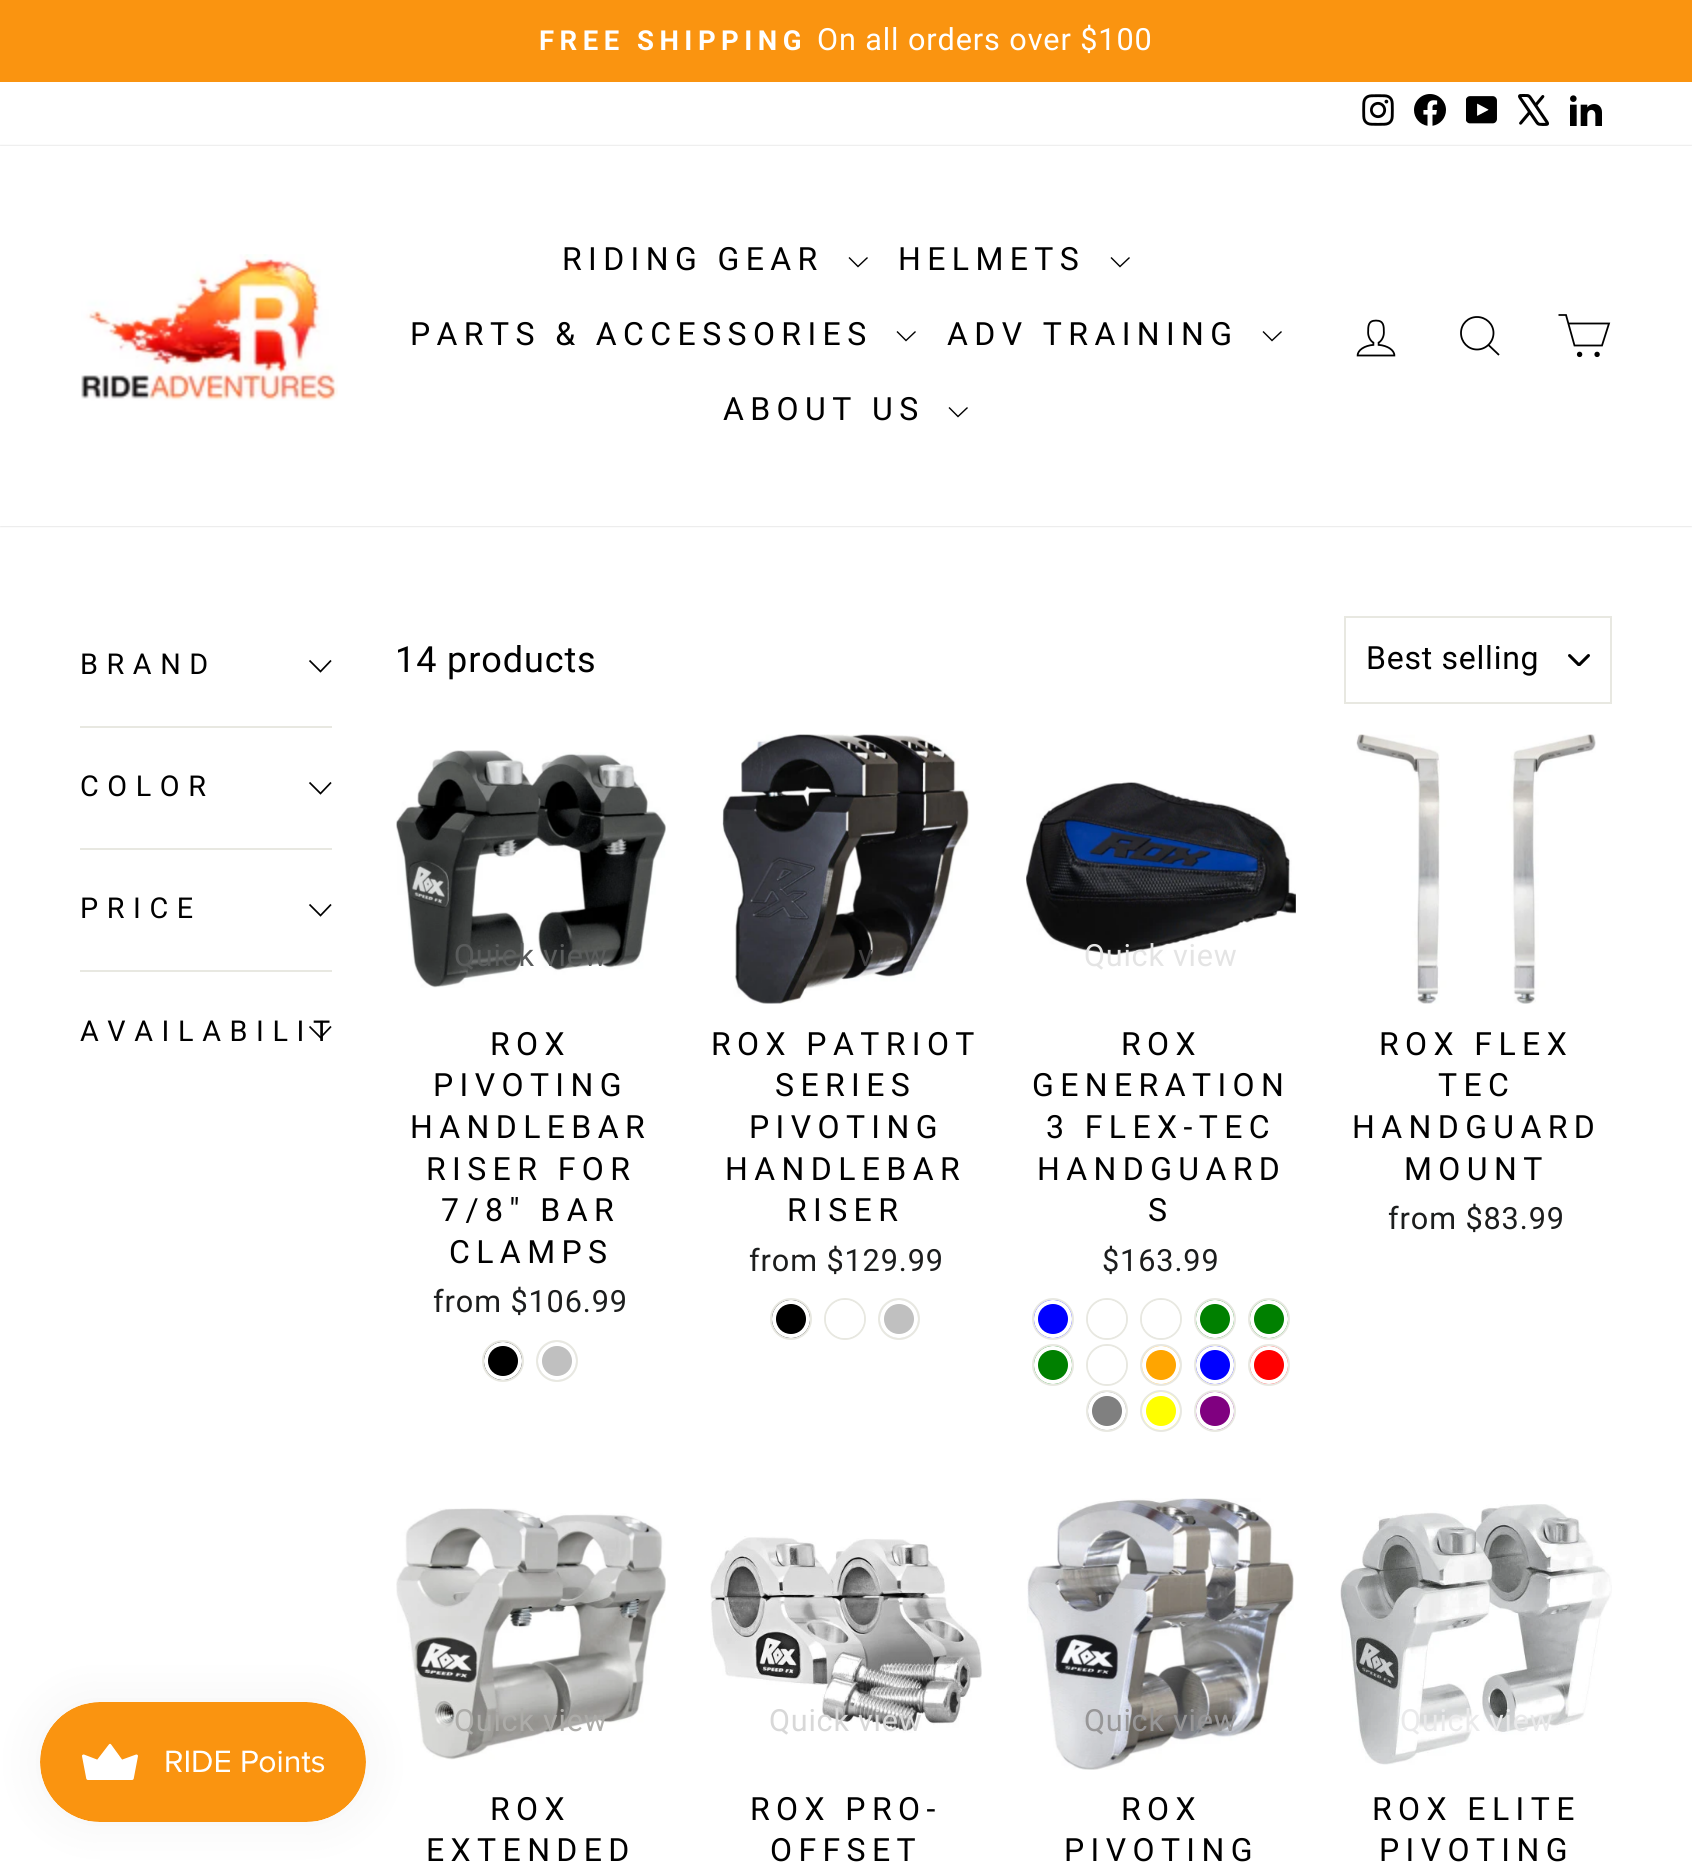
#include <cairo.h>
#include <math.h>
#include <stddef.h>

static cairo_t *ctx;

static void use_color(int r, int g, int b) {
    cairo_set_source_rgb(ctx, r / 255.0, g / 255.0, b / 255.0);
}

static void spaced_text(double x, double y, const char *s, double letter, double word) {
    cairo_move_to(ctx, x, y);
    while (*s) {
        char ch[5] = {0};
        int n = 0;
        do ch[n++] = *s++; while ((*s & 0xC0) == 0x80);
        cairo_show_text(ctx, ch);
        cairo_rel_move_to(ctx, letter + word * (*ch == ' '), 0);
    }
}

static void round_rect(double x, double y, double w, double h, double r) {
    cairo_new_sub_path(ctx);
    cairo_arc(ctx, x + w - r, y + h - r, r, 0, M_PI / 2);
    cairo_arc(ctx, x + r, y + h - r, r, M_PI / 2, M_PI);
    cairo_arc(ctx, x + r, y + r, r, M_PI, 1.5 * M_PI);
    cairo_arc(ctx, x + w - r, y + r, r, 1.5 * M_PI, 2 * M_PI);
    cairo_close_path(ctx);
}

static void shadow(double x, double y, double w, double h, double r, double blur, double alpha) {
    cairo_push_group_with_content(ctx, CAIRO_CONTENT_ALPHA);
    cairo_set_operator(ctx, CAIRO_OPERATOR_SOURCE);
    for (int i = 15; i >= -15 && fmin(w, h) + blur * i / 3 > 0; i -= 2) {
        double e = blur * i / 6;
        cairo_set_source_rgba(ctx, 0, 0, 0, alpha * erfc((i - 1) / 8.5) / 2);
        round_rect(x - e, y - e, w + 2 * e, h + 2 * e, fmax(0, fmin(r + e + blur * .6, fmin(w, h) / 2 + e)));
        cairo_fill(ctx);
    }
    cairo_pattern_t *soft = cairo_pop_group(ctx);
    cairo_mask(ctx, soft);
    cairo_pattern_destroy(soft);
}

static void picture(const char *path, double x, double y, double w, double h) {
    cairo_surface_t *image = cairo_image_surface_create_from_png(path);
    cairo_save(ctx);
    cairo_set_source_surface(ctx, image, x, y);
    cairo_rectangle(ctx, x, y, w, h);
    cairo_fill(ctx);
    cairo_restore(ctx);
    cairo_surface_destroy(image);
}

int main(void) {
    cairo_surface_t *surface = cairo_image_surface_create(CAIRO_FORMAT_RGB24, 1692, 1862);
    ctx = cairo_create(surface);
    cairo_font_options_t *options = cairo_font_options_create();
    cairo_font_options_set_hint_metrics(options, CAIRO_HINT_METRICS_OFF);
    cairo_font_options_set_hint_style(options, CAIRO_HINT_STYLE_NONE);
    cairo_set_font_options(ctx, options);
    cairo_set_miter_limit(ctx, 4);
    use_color(255, 255, 255);
    cairo_paint(ctx);
    use_color(250, 148, 16);
    cairo_rectangle(ctx, 0, 0, 1692, 82);
    cairo_fill(ctx);
    cairo_select_font_face(ctx, "Roboto", CAIRO_FONT_SLANT_NORMAL, CAIRO_FONT_WEIGHT_BOLD);
    cairo_set_font_size(ctx, 27.5);
    use_color(255, 255, 255);
    spaced_text(539, 50, "FREE SHIPPING", 5.5, 0);
    cairo_select_font_face(ctx, "Roboto", CAIRO_FONT_SLANT_NORMAL, CAIRO_FONT_WEIGHT_NORMAL);
    cairo_set_font_size(ctx, 30.6);
    spaced_text(817, 50, "On all orders over $100", 0.9, 0);
    picture("img1.png", 1362, 94, 32, 32);
    picture("img2.png", 1414, 94, 32, 32);
    picture("img3.png", 1466, 96, 31, 28);
    picture("img4.png", 1518, 94, 31, 32);
    picture("img5.png", 1570, 95, 32, 31);
    cairo_save(ctx);
    cairo_set_fill_rule(ctx, CAIRO_FILL_RULE_EVEN_ODD);
    cairo_new_path(ctx);
    cairo_move_to(ctx, 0, 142);
    cairo_line_to(ctx, 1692, 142);
    cairo_line_to(ctx, 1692, 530);
    cairo_line_to(ctx, 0, 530);
    cairo_close_path(ctx);
    cairo_move_to(ctx, 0, 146);
    cairo_line_to(ctx, 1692, 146);
    cairo_line_to(ctx, 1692, 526);
    cairo_line_to(ctx, 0, 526);
    cairo_close_path(ctx);
    cairo_clip(ctx);
    use_color(0, 0, 0);
    shadow(0, 146, 1692, 380, 0, 1, 0.2);
    cairo_restore(ctx);
    picture("img6.png", 81, 254, 257, 147);
    cairo_set_font_size(ctx, 32);
    use_color(0, 0, 0);
    spaced_text(562, 270, "RIDING GEAR", 6.4, 0);
    cairo_new_path(ctx);
    cairo_move_to(ctx, 849, 257.5);
    cairo_line_to(ctx, 858, 266.5);
    cairo_line_to(ctx, 867.5, 257.5);
    cairo_set_line_width(ctx, 1.4);
    cairo_stroke(ctx);
    spaced_text(898, 270, "HELMETS", 6.4, 0);
    cairo_new_path(ctx);
    cairo_move_to(ctx, 1111, 257.5);
    cairo_line_to(ctx, 1120, 266.5);
    cairo_line_to(ctx, 1129.5, 257.5);
    cairo_stroke(ctx);
    spaced_text(410, 345, "PARTS & ACCESSORIES", 6.4, 0);
    cairo_new_path(ctx);
    cairo_move_to(ctx, 897, 331.5);
    cairo_line_to(ctx, 906, 340.5);
    cairo_line_to(ctx, 915.5, 331.5);
    cairo_stroke(ctx);
    spaced_text(947, 345, "ADV TRAINING", 6.4, 0);
    cairo_new_path(ctx);
    cairo_move_to(ctx, 1263, 331.5);
    cairo_line_to(ctx, 1272, 340.5);
    cairo_line_to(ctx, 1281.5, 331.5);
    cairo_stroke(ctx);
    spaced_text(723, 420, "ABOUT US", 6.4, 0);
    cairo_new_path(ctx);
    cairo_move_to(ctx, 949, 407.5);
    cairo_line_to(ctx, 958, 416.5);
    cairo_line_to(ctx, 967.5, 407.5);
    cairo_stroke(ctx);
    picture("img7.png", 1356, 319, 40, 38);
    cairo_new_path(ctx);
    cairo_move_to(ctx, 1493.5, 333);
    cairo_curve_to(ctx, 1493.5, 342, 1486, 349.5, 1477, 349.5);
    cairo_curve_to(ctx, 1468, 349.5, 1461, 342, 1461, 333);
    cairo_curve_to(ctx, 1461, 324, 1468, 317, 1477, 317);
    cairo_curve_to(ctx, 1486, 317, 1493.5, 324, 1493.5, 333);
    cairo_close_path(ctx);
    cairo_move_to(ctx, 1499, 355);
    cairo_line_to(ctx, 1488.5, 345);
    cairo_set_line_width(ctx, 1.8);
    cairo_stroke(ctx);
    cairo_new_path(ctx);
    cairo_move_to(ctx, 1568, 323.5);
    cairo_line_to(ctx, 1609, 323.5);
    cairo_line_to(ctx, 1602, 345.5);
    cairo_line_to(ctx, 1574.5, 345.5);
    cairo_line_to(ctx, 1566, 315);
    cairo_line_to(ctx, 1558.5, 315);
    cairo_stroke(ctx);
    cairo_arc(ctx, 1579.6, 354.4, 1.8, 0, 2 * M_PI);
    cairo_fill_preserve(ctx);
    cairo_stroke(ctx);
    cairo_arc(ctx, 1597.1, 354.4, 1.8, 0, 2 * M_PI);
    cairo_fill_preserve(ctx);
    cairo_stroke(ctx);
    cairo_set_font_size(ctx, 28.75);
    spaced_text(80, 674, "BRAND", 8.6, 0);
    cairo_new_path(ctx);
    cairo_move_to(ctx, 309.5, 660.5);
    cairo_line_to(ctx, 320.5, 671.5);
    cairo_line_to(ctx, 331, 660.5);
    cairo_set_line_width(ctx, 1.7);
    cairo_stroke(ctx);
    use_color(232, 232, 225);
    cairo_rectangle(ctx, 80, 726, 252, 2);
    cairo_fill(ctx);
    use_color(0, 0, 0);
    spaced_text(80, 796, "COLOR", 8.6, 0);
    cairo_new_path(ctx);
    cairo_move_to(ctx, 309.5, 782.5);
    cairo_line_to(ctx, 320.5, 793.5);
    cairo_line_to(ctx, 331, 782.5);
    cairo_stroke(ctx);
    use_color(232, 232, 225);
    cairo_rectangle(ctx, 80, 848, 252, 2);
    cairo_fill(ctx);
    use_color(0, 0, 0);
    spaced_text(80, 918, "PRICE", 8.6, 0);
    cairo_new_path(ctx);
    cairo_move_to(ctx, 309.5, 904.5);
    cairo_line_to(ctx, 320.5, 915.5);
    cairo_line_to(ctx, 331, 904.5);
    cairo_stroke(ctx);
    use_color(232, 232, 225);
    cairo_rectangle(ctx, 80, 970, 252, 2);
    cairo_fill(ctx);
    use_color(0, 0, 0);
    spaced_text(80, 1041, "AVAILABILIT", 8.6, 0);
    cairo_new_path(ctx);
    cairo_move_to(ctx, 309.5, 1026.5);
    cairo_line_to(ctx, 320.5, 1037.5);
    cairo_line_to(ctx, 331, 1026.5);
    cairo_stroke(ctx);
    cairo_set_font_size(ctx, 36);
    spaced_text(395, 672, "14 products", 0.9, 0);
    picture("img8.png", 1568, 654, 22, 12);
    cairo_rectangle(ctx, 1345, 617, 266, 86);
    use_color(232, 232, 225);
    cairo_set_line_width(ctx, 2);
    cairo_stroke(ctx);
    cairo_set_font_size(ctx, 32);
    use_color(0, 0, 0);
    spaced_text(1366, 669, "Best selling", 0.75, 0);
    picture("img9.png", 396, 750, 270, 238);
    cairo_set_font_size(ctx, 30.6);
    use_color(89, 91, 91);
    spaced_text(454, 966, "Quick view", 0.75, 0);
    cairo_set_font_size(ctx, 32);
    use_color(0, 0, 0);
    spaced_text(490, 1055, "ROX", 6.4, 0);
    spaced_text(433, 1096, "PIVOTING", 6.4, 0);
    spaced_text(410, 1138, "HANDLEBAR", 6.4, 0);
    spaced_text(426, 1180, "RISER FOR", 6.4, 0);
    spaced_text(441, 1221, "7/8\" BAR", 6.4, 0);
    spaced_text(449, 1263, "CLAMPS", 6.4, 0);
    cairo_set_font_size(ctx, 30.6);
    use_color(28, 29, 29);
    spaced_text(433, 1312, "from $106.99", 0.9, 0);
    cairo_new_path(ctx);
    cairo_arc(ctx, 503, 1361, 20, 0, 2 * M_PI);
    use_color(232, 232, 225);
    cairo_stroke(ctx);
    use_color(0, 0, 0);
    cairo_arc(ctx, 503, 1361, 19, 0, 2 * M_PI);
    cairo_fill(ctx);
    use_color(255, 255, 255);
    cairo_set_fill_rule(ctx, CAIRO_FILL_RULE_EVEN_ODD);
    cairo_new_path(ctx);
    cairo_move_to(ctx, 503, 1342);
    cairo_curve_to(ctx, 492.5, 1342, 484, 1350.5, 484, 1361);
    cairo_curve_to(ctx, 484, 1371.5, 492.5, 1380, 503, 1380);
    cairo_curve_to(ctx, 513.5, 1380, 522, 1371.5, 522, 1361);
    cairo_curve_to(ctx, 522, 1350.5, 513.5, 1342, 503, 1342);
    cairo_close_path(ctx);
    cairo_move_to(ctx, 503, 1346);
    cairo_curve_to(ctx, 494.5, 1346, 488, 1352.5, 488, 1361);
    cairo_curve_to(ctx, 488, 1369.5, 494.5, 1376, 503, 1376);
    cairo_curve_to(ctx, 511.5, 1376, 518, 1369.5, 518, 1361);
    cairo_curve_to(ctx, 518, 1352.5, 511.5, 1346, 503, 1346);
    cairo_close_path(ctx);
    cairo_fill(ctx);
    cairo_arc(ctx, 557, 1361, 20, 0, 2 * M_PI);
    use_color(232, 232, 225);
    cairo_stroke(ctx);
    use_color(192, 192, 192);
    cairo_arc(ctx, 557, 1361, 19, 0, 2 * M_PI);
    cairo_fill(ctx);
    use_color(255, 255, 255);
    cairo_new_path(ctx);
    cairo_move_to(ctx, 557, 1342);
    cairo_curve_to(ctx, 546.5, 1342, 538, 1350.5, 538, 1361);
    cairo_curve_to(ctx, 538, 1371.5, 546.5, 1380, 557, 1380);
    cairo_curve_to(ctx, 567.5, 1380, 576, 1371.5, 576, 1361);
    cairo_curve_to(ctx, 576, 1350.5, 567.5, 1342, 557, 1342);
    cairo_close_path(ctx);
    cairo_move_to(ctx, 557, 1346);
    cairo_curve_to(ctx, 548.5, 1346, 542, 1352.5, 542, 1361);
    cairo_curve_to(ctx, 542, 1369.5, 548.5, 1376, 557, 1376);
    cairo_curve_to(ctx, 565.5, 1376, 572, 1369.5, 572, 1361);
    cairo_curve_to(ctx, 572, 1352.5, 565.5, 1346, 557, 1346);
    cairo_close_path(ctx);
    cairo_fill(ctx);
    picture("img10.png", 722, 734, 248, 270);
    use_color(64, 63, 64);
    spaced_text(858, 966, "v", 0.75, 0);
    cairo_set_font_size(ctx, 32);
    use_color(0, 0, 0);
    spaced_text(711, 1055, "ROX PATRIOT", 6.4, 0);
    spaced_text(775, 1096, "SERIES", 6.4, 0);
    spaced_text(749, 1138, "PIVOTING", 6.4, 0);
    spaced_text(725, 1180, "HANDLEBAR", 6.4, 0);
    spaced_text(787, 1221, "RISER", 6.4, 0);
    cairo_set_font_size(ctx, 30.6);
    use_color(28, 29, 29);
    spaced_text(749, 1271, "from $129.99", 0.9, 0);
    cairo_new_path(ctx);
    cairo_arc(ctx, 791, 1319, 20, 0, 2 * M_PI);
    use_color(232, 232, 225);
    cairo_stroke(ctx);
    use_color(0, 0, 0);
    cairo_arc(ctx, 791, 1319, 19, 0, 2 * M_PI);
    cairo_fill(ctx);
    use_color(255, 255, 255);
    cairo_new_path(ctx);
    cairo_move_to(ctx, 791, 1300);
    cairo_curve_to(ctx, 780.5, 1300, 772, 1308.5, 772, 1319);
    cairo_curve_to(ctx, 772, 1329.5, 780.5, 1338, 791, 1338);
    cairo_curve_to(ctx, 801.5, 1338, 810, 1329.5, 810, 1319);
    cairo_curve_to(ctx, 810, 1308.5, 801.5, 1300, 791, 1300);
    cairo_close_path(ctx);
    cairo_move_to(ctx, 791, 1304);
    cairo_curve_to(ctx, 782.5, 1304, 776, 1310.5, 776, 1319);
    cairo_curve_to(ctx, 776, 1327.5, 782.5, 1334, 791, 1334);
    cairo_curve_to(ctx, 799.5, 1334, 806, 1327.5, 806, 1319);
    cairo_curve_to(ctx, 806, 1310.5, 799.5, 1304, 791, 1304);
    cairo_close_path(ctx);
    cairo_fill(ctx);
    cairo_arc(ctx, 845, 1319, 20, 0, 2 * M_PI);
    use_color(232, 232, 225);
    cairo_stroke(ctx);
    use_color(255, 255, 255);
    cairo_new_path(ctx);
    cairo_move_to(ctx, 845, 1300);
    cairo_curve_to(ctx, 834.5, 1300, 826, 1308.5, 826, 1319);
    cairo_curve_to(ctx, 826, 1329.5, 834.5, 1338, 845, 1338);
    cairo_curve_to(ctx, 855.5, 1338, 864, 1329.5, 864, 1319);
    cairo_curve_to(ctx, 864, 1308.5, 855.5, 1300, 845, 1300);
    cairo_close_path(ctx);
    cairo_move_to(ctx, 845, 1304);
    cairo_curve_to(ctx, 836.5, 1304, 830, 1310.5, 830, 1319);
    cairo_curve_to(ctx, 830, 1327.5, 836.5, 1334, 845, 1334);
    cairo_curve_to(ctx, 853.5, 1334, 860, 1327.5, 860, 1319);
    cairo_curve_to(ctx, 860, 1310.5, 853.5, 1304, 845, 1304);
    cairo_close_path(ctx);
    cairo_fill(ctx);
    cairo_arc(ctx, 899, 1319, 20, 0, 2 * M_PI);
    use_color(232, 232, 225);
    cairo_stroke(ctx);
    use_color(192, 192, 192);
    cairo_arc(ctx, 899, 1319, 19, 0, 2 * M_PI);
    cairo_fill(ctx);
    use_color(255, 255, 255);
    cairo_new_path(ctx);
    cairo_move_to(ctx, 899, 1300);
    cairo_curve_to(ctx, 888.5, 1300, 880, 1308.5, 880, 1319);
    cairo_curve_to(ctx, 880, 1329.5, 888.5, 1338, 899, 1338);
    cairo_curve_to(ctx, 909.5, 1338, 918, 1329.5, 918, 1319);
    cairo_curve_to(ctx, 918, 1308.5, 909.5, 1300, 899, 1300);
    cairo_close_path(ctx);
    cairo_move_to(ctx, 899, 1304);
    cairo_curve_to(ctx, 890.5, 1304, 884, 1310.5, 884, 1319);
    cairo_curve_to(ctx, 884, 1327.5, 890.5, 1334, 899, 1334);
    cairo_curve_to(ctx, 907.5, 1334, 914, 1327.5, 914, 1319);
    cairo_curve_to(ctx, 914, 1310.5, 907.5, 1304, 899, 1304);
    cairo_close_path(ctx);
    cairo_fill(ctx);
    picture("img11.png", 1026, 781, 270, 174);
    use_color(228, 228, 228);
    spaced_text(1084, 966, "Quick view", 0.75, 0);
    cairo_set_font_size(ctx, 32);
    use_color(0, 0, 0);
    spaced_text(1121, 1055, "ROX", 6.4, 0);
    spaced_text(1032, 1096, "GENERATION", 6.4, 0);
    spaced_text(1046, 1138, "3 FLEX-TEC", 6.4, 0);
    spaced_text(1037, 1180, "HANDGUARD", 6.4, 0);
    spaced_text(1148, 1221, "S", 6.4, 0);
    cairo_set_font_size(ctx, 30.6);
    use_color(28, 29, 29);
    spaced_text(1102, 1271, "$163.99", 0.9, 0);
    cairo_new_path(ctx);
    cairo_arc(ctx, 1053, 1319, 20, 0, 2 * M_PI);
    use_color(232, 232, 225);
    cairo_stroke(ctx);
    use_color(0, 0, 255);
    cairo_arc(ctx, 1053, 1319, 19, 0, 2 * M_PI);
    cairo_fill(ctx);
    use_color(255, 255, 255);
    cairo_new_path(ctx);
    cairo_move_to(ctx, 1053, 1300);
    cairo_curve_to(ctx, 1042.5, 1300, 1034, 1308.5, 1034, 1319);
    cairo_curve_to(ctx, 1034, 1329.5, 1042.5, 1338, 1053, 1338);
    cairo_curve_to(ctx, 1063.5, 1338, 1072, 1329.5, 1072, 1319);
    cairo_curve_to(ctx, 1072, 1308.5, 1063.5, 1300, 1053, 1300);
    cairo_close_path(ctx);
    cairo_move_to(ctx, 1053, 1304);
    cairo_curve_to(ctx, 1044.5, 1304, 1038, 1310.5, 1038, 1319);
    cairo_curve_to(ctx, 1038, 1327.5, 1044.5, 1334, 1053, 1334);
    cairo_curve_to(ctx, 1061.5, 1334, 1068, 1327.5, 1068, 1319);
    cairo_curve_to(ctx, 1068, 1310.5, 1061.5, 1304, 1053, 1304);
    cairo_close_path(ctx);
    cairo_fill(ctx);
    cairo_arc(ctx, 1107, 1319, 20, 0, 2 * M_PI);
    use_color(232, 232, 225);
    cairo_stroke(ctx);
    use_color(255, 255, 255);
    cairo_new_path(ctx);
    cairo_move_to(ctx, 1107, 1300);
    cairo_curve_to(ctx, 1096.5, 1300, 1088, 1308.5, 1088, 1319);
    cairo_curve_to(ctx, 1088, 1329.5, 1096.5, 1338, 1107, 1338);
    cairo_curve_to(ctx, 1117.5, 1338, 1126, 1329.5, 1126, 1319);
    cairo_curve_to(ctx, 1126, 1308.5, 1117.5, 1300, 1107, 1300);
    cairo_close_path(ctx);
    cairo_move_to(ctx, 1107, 1304);
    cairo_curve_to(ctx, 1098.5, 1304, 1092, 1310.5, 1092, 1319);
    cairo_curve_to(ctx, 1092, 1327.5, 1098.5, 1334, 1107, 1334);
    cairo_curve_to(ctx, 1115.5, 1334, 1122, 1327.5, 1122, 1319);
    cairo_curve_to(ctx, 1122, 1310.5, 1115.5, 1304, 1107, 1304);
    cairo_close_path(ctx);
    cairo_fill(ctx);
    cairo_arc(ctx, 1161, 1319, 20, 0, 2 * M_PI);
    use_color(232, 232, 225);
    cairo_stroke(ctx);
    use_color(255, 255, 255);
    cairo_new_path(ctx);
    cairo_move_to(ctx, 1161, 1300);
    cairo_curve_to(ctx, 1150.5, 1300, 1142, 1308.5, 1142, 1319);
    cairo_curve_to(ctx, 1142, 1329.5, 1150.5, 1338, 1161, 1338);
    cairo_curve_to(ctx, 1171.5, 1338, 1180, 1329.5, 1180, 1319);
    cairo_curve_to(ctx, 1180, 1308.5, 1171.5, 1300, 1161, 1300);
    cairo_close_path(ctx);
    cairo_move_to(ctx, 1161, 1304);
    cairo_curve_to(ctx, 1152.5, 1304, 1146, 1310.5, 1146, 1319);
    cairo_curve_to(ctx, 1146, 1327.5, 1152.5, 1334, 1161, 1334);
    cairo_curve_to(ctx, 1169.5, 1334, 1176, 1327.5, 1176, 1319);
    cairo_curve_to(ctx, 1176, 1310.5, 1169.5, 1304, 1161, 1304);
    cairo_close_path(ctx);
    cairo_fill(ctx);
    cairo_arc(ctx, 1215, 1319, 20, 0, 2 * M_PI);
    use_color(232, 232, 225);
    cairo_stroke(ctx);
    use_color(0, 128, 0);
    cairo_arc(ctx, 1215, 1319, 19, 0, 2 * M_PI);
    cairo_fill(ctx);
    use_color(255, 255, 255);
    cairo_new_path(ctx);
    cairo_move_to(ctx, 1215, 1300);
    cairo_curve_to(ctx, 1204.5, 1300, 1196, 1308.5, 1196, 1319);
    cairo_curve_to(ctx, 1196, 1329.5, 1204.5, 1338, 1215, 1338);
    cairo_curve_to(ctx, 1225.5, 1338, 1234, 1329.5, 1234, 1319);
    cairo_curve_to(ctx, 1234, 1308.5, 1225.5, 1300, 1215, 1300);
    cairo_close_path(ctx);
    cairo_move_to(ctx, 1215, 1304);
    cairo_curve_to(ctx, 1206.5, 1304, 1200, 1310.5, 1200, 1319);
    cairo_curve_to(ctx, 1200, 1327.5, 1206.5, 1334, 1215, 1334);
    cairo_curve_to(ctx, 1223.5, 1334, 1230, 1327.5, 1230, 1319);
    cairo_curve_to(ctx, 1230, 1310.5, 1223.5, 1304, 1215, 1304);
    cairo_close_path(ctx);
    cairo_fill(ctx);
    cairo_arc(ctx, 1269, 1319, 20, 0, 2 * M_PI);
    use_color(232, 232, 225);
    cairo_stroke(ctx);
    use_color(0, 128, 0);
    cairo_arc(ctx, 1269, 1319, 19, 0, 2 * M_PI);
    cairo_fill(ctx);
    use_color(255, 255, 255);
    cairo_new_path(ctx);
    cairo_move_to(ctx, 1269, 1300);
    cairo_curve_to(ctx, 1258.5, 1300, 1250, 1308.5, 1250, 1319);
    cairo_curve_to(ctx, 1250, 1329.5, 1258.5, 1338, 1269, 1338);
    cairo_curve_to(ctx, 1279.5, 1338, 1288, 1329.5, 1288, 1319);
    cairo_curve_to(ctx, 1288, 1308.5, 1279.5, 1300, 1269, 1300);
    cairo_close_path(ctx);
    cairo_move_to(ctx, 1269, 1304);
    cairo_curve_to(ctx, 1260.5, 1304, 1254, 1310.5, 1254, 1319);
    cairo_curve_to(ctx, 1254, 1327.5, 1260.5, 1334, 1269, 1334);
    cairo_curve_to(ctx, 1277.5, 1334, 1284, 1327.5, 1284, 1319);
    cairo_curve_to(ctx, 1284, 1310.5, 1277.5, 1304, 1269, 1304);
    cairo_close_path(ctx);
    cairo_fill(ctx);
    cairo_arc(ctx, 1053, 1365, 20, 0, 2 * M_PI);
    use_color(232, 232, 225);
    cairo_stroke(ctx);
    use_color(0, 128, 0);
    cairo_arc(ctx, 1053, 1365, 19, 0, 2 * M_PI);
    cairo_fill(ctx);
    use_color(255, 255, 255);
    cairo_new_path(ctx);
    cairo_move_to(ctx, 1053, 1346);
    cairo_curve_to(ctx, 1042.5, 1346, 1034, 1354.5, 1034, 1365);
    cairo_curve_to(ctx, 1034, 1375.5, 1042.5, 1384, 1053, 1384);
    cairo_curve_to(ctx, 1063.5, 1384, 1072, 1375.5, 1072, 1365);
    cairo_curve_to(ctx, 1072, 1354.5, 1063.5, 1346, 1053, 1346);
    cairo_close_path(ctx);
    cairo_move_to(ctx, 1053, 1350);
    cairo_curve_to(ctx, 1044.5, 1350, 1038, 1356.5, 1038, 1365);
    cairo_curve_to(ctx, 1038, 1373.5, 1044.5, 1380, 1053, 1380);
    cairo_curve_to(ctx, 1061.5, 1380, 1068, 1373.5, 1068, 1365);
    cairo_curve_to(ctx, 1068, 1356.5, 1061.5, 1350, 1053, 1350);
    cairo_close_path(ctx);
    cairo_fill(ctx);
    cairo_arc(ctx, 1107, 1365, 20, 0, 2 * M_PI);
    use_color(232, 232, 225);
    cairo_stroke(ctx);
    use_color(255, 255, 255);
    cairo_new_path(ctx);
    cairo_move_to(ctx, 1107, 1346);
    cairo_curve_to(ctx, 1096.5, 1346, 1088, 1354.5, 1088, 1365);
    cairo_curve_to(ctx, 1088, 1375.5, 1096.5, 1384, 1107, 1384);
    cairo_curve_to(ctx, 1117.5, 1384, 1126, 1375.5, 1126, 1365);
    cairo_curve_to(ctx, 1126, 1354.5, 1117.5, 1346, 1107, 1346);
    cairo_close_path(ctx);
    cairo_move_to(ctx, 1107, 1350);
    cairo_curve_to(ctx, 1098.5, 1350, 1092, 1356.5, 1092, 1365);
    cairo_curve_to(ctx, 1092, 1373.5, 1098.5, 1380, 1107, 1380);
    cairo_curve_to(ctx, 1115.5, 1380, 1122, 1373.5, 1122, 1365);
    cairo_curve_to(ctx, 1122, 1356.5, 1115.5, 1350, 1107, 1350);
    cairo_close_path(ctx);
    cairo_fill(ctx);
    cairo_arc(ctx, 1161, 1365, 20, 0, 2 * M_PI);
    use_color(232, 232, 225);
    cairo_stroke(ctx);
    use_color(255, 165, 0);
    cairo_arc(ctx, 1161, 1365, 19, 0, 2 * M_PI);
    cairo_fill(ctx);
    use_color(255, 255, 255);
    cairo_new_path(ctx);
    cairo_move_to(ctx, 1161, 1346);
    cairo_curve_to(ctx, 1150.5, 1346, 1142, 1354.5, 1142, 1365);
    cairo_curve_to(ctx, 1142, 1375.5, 1150.5, 1384, 1161, 1384);
    cairo_curve_to(ctx, 1171.5, 1384, 1180, 1375.5, 1180, 1365);
    cairo_curve_to(ctx, 1180, 1354.5, 1171.5, 1346, 1161, 1346);
    cairo_close_path(ctx);
    cairo_move_to(ctx, 1161, 1350);
    cairo_curve_to(ctx, 1152.5, 1350, 1146, 1356.5, 1146, 1365);
    cairo_curve_to(ctx, 1146, 1373.5, 1152.5, 1380, 1161, 1380);
    cairo_curve_to(ctx, 1169.5, 1380, 1176, 1373.5, 1176, 1365);
    cairo_curve_to(ctx, 1176, 1356.5, 1169.5, 1350, 1161, 1350);
    cairo_close_path(ctx);
    cairo_fill(ctx);
    cairo_arc(ctx, 1215, 1365, 20, 0, 2 * M_PI);
    use_color(232, 232, 225);
    cairo_stroke(ctx);
    use_color(0, 0, 255);
    cairo_arc(ctx, 1215, 1365, 19, 0, 2 * M_PI);
    cairo_fill(ctx);
    use_color(255, 255, 255);
    cairo_new_path(ctx);
    cairo_move_to(ctx, 1215, 1346);
    cairo_curve_to(ctx, 1204.5, 1346, 1196, 1354.5, 1196, 1365);
    cairo_curve_to(ctx, 1196, 1375.5, 1204.5, 1384, 1215, 1384);
    cairo_curve_to(ctx, 1225.5, 1384, 1234, 1375.5, 1234, 1365);
    cairo_curve_to(ctx, 1234, 1354.5, 1225.5, 1346, 1215, 1346);
    cairo_close_path(ctx);
    cairo_move_to(ctx, 1215, 1350);
    cairo_curve_to(ctx, 1206.5, 1350, 1200, 1356.5, 1200, 1365);
    cairo_curve_to(ctx, 1200, 1373.5, 1206.5, 1380, 1215, 1380);
    cairo_curve_to(ctx, 1223.5, 1380, 1230, 1373.5, 1230, 1365);
    cairo_curve_to(ctx, 1230, 1356.5, 1223.5, 1350, 1215, 1350);
    cairo_close_path(ctx);
    cairo_fill(ctx);
    cairo_arc(ctx, 1269, 1365, 20, 0, 2 * M_PI);
    use_color(232, 232, 225);
    cairo_stroke(ctx);
    use_color(255, 0, 0);
    cairo_arc(ctx, 1269, 1365, 19, 0, 2 * M_PI);
    cairo_fill(ctx);
    use_color(255, 255, 255);
    cairo_new_path(ctx);
    cairo_move_to(ctx, 1269, 1346);
    cairo_curve_to(ctx, 1258.5, 1346, 1250, 1354.5, 1250, 1365);
    cairo_curve_to(ctx, 1250, 1375.5, 1258.5, 1384, 1269, 1384);
    cairo_curve_to(ctx, 1279.5, 1384, 1288, 1375.5, 1288, 1365);
    cairo_curve_to(ctx, 1288, 1354.5, 1279.5, 1346, 1269, 1346);
    cairo_close_path(ctx);
    cairo_move_to(ctx, 1269, 1350);
    cairo_curve_to(ctx, 1260.5, 1350, 1254, 1356.5, 1254, 1365);
    cairo_curve_to(ctx, 1254, 1373.5, 1260.5, 1380, 1269, 1380);
    cairo_curve_to(ctx, 1277.5, 1380, 1284, 1373.5, 1284, 1365);
    cairo_curve_to(ctx, 1284, 1356.5, 1277.5, 1350, 1269, 1350);
    cairo_close_path(ctx);
    cairo_fill(ctx);
    cairo_arc(ctx, 1107, 1411, 20, 0, 2 * M_PI);
    use_color(232, 232, 225);
    cairo_stroke(ctx);
    use_color(128, 128, 128);
    cairo_arc(ctx, 1107, 1411, 19, 0, 2 * M_PI);
    cairo_fill(ctx);
    use_color(255, 255, 255);
    cairo_new_path(ctx);
    cairo_move_to(ctx, 1107, 1392);
    cairo_curve_to(ctx, 1096.5, 1392, 1088, 1400.5, 1088, 1411);
    cairo_curve_to(ctx, 1088, 1421.5, 1096.5, 1430, 1107, 1430);
    cairo_curve_to(ctx, 1117.5, 1430, 1126, 1421.5, 1126, 1411);
    cairo_curve_to(ctx, 1126, 1400.5, 1117.5, 1392, 1107, 1392);
    cairo_close_path(ctx);
    cairo_move_to(ctx, 1107, 1396);
    cairo_curve_to(ctx, 1098.5, 1396, 1092, 1402.5, 1092, 1411);
    cairo_curve_to(ctx, 1092, 1419.5, 1098.5, 1426, 1107, 1426);
    cairo_curve_to(ctx, 1115.5, 1426, 1122, 1419.5, 1122, 1411);
    cairo_curve_to(ctx, 1122, 1402.5, 1115.5, 1396, 1107, 1396);
    cairo_close_path(ctx);
    cairo_fill(ctx);
    cairo_arc(ctx, 1161, 1411, 20, 0, 2 * M_PI);
    use_color(232, 232, 225);
    cairo_stroke(ctx);
    use_color(255, 255, 0);
    cairo_arc(ctx, 1161, 1411, 19, 0, 2 * M_PI);
    cairo_fill(ctx);
    use_color(255, 255, 255);
    cairo_new_path(ctx);
    cairo_move_to(ctx, 1161, 1392);
    cairo_curve_to(ctx, 1150.5, 1392, 1142, 1400.5, 1142, 1411);
    cairo_curve_to(ctx, 1142, 1421.5, 1150.5, 1430, 1161, 1430);
    cairo_curve_to(ctx, 1171.5, 1430, 1180, 1421.5, 1180, 1411);
    cairo_curve_to(ctx, 1180, 1400.5, 1171.5, 1392, 1161, 1392);
    cairo_close_path(ctx);
    cairo_move_to(ctx, 1161, 1396);
    cairo_curve_to(ctx, 1152.5, 1396, 1146, 1402.5, 1146, 1411);
    cairo_curve_to(ctx, 1146, 1419.5, 1152.5, 1426, 1161, 1426);
    cairo_curve_to(ctx, 1169.5, 1426, 1176, 1419.5, 1176, 1411);
    cairo_curve_to(ctx, 1176, 1402.5, 1169.5, 1396, 1161, 1396);
    cairo_close_path(ctx);
    cairo_fill(ctx);
    cairo_arc(ctx, 1215, 1411, 20, 0, 2 * M_PI);
    use_color(232, 232, 225);
    cairo_stroke(ctx);
    use_color(128, 0, 128);
    cairo_arc(ctx, 1215, 1411, 19, 0, 2 * M_PI);
    cairo_fill(ctx);
    use_color(255, 255, 255);
    cairo_new_path(ctx);
    cairo_move_to(ctx, 1215, 1392);
    cairo_curve_to(ctx, 1204.5, 1392, 1196, 1400.5, 1196, 1411);
    cairo_curve_to(ctx, 1196, 1421.5, 1204.5, 1430, 1215, 1430);
    cairo_curve_to(ctx, 1225.5, 1430, 1234, 1421.5, 1234, 1411);
    cairo_curve_to(ctx, 1234, 1400.5, 1225.5, 1392, 1215, 1392);
    cairo_close_path(ctx);
    cairo_move_to(ctx, 1215, 1396);
    cairo_curve_to(ctx, 1206.5, 1396, 1200, 1402.5, 1200, 1411);
    cairo_curve_to(ctx, 1200, 1419.5, 1206.5, 1426, 1215, 1426);
    cairo_curve_to(ctx, 1223.5, 1426, 1230, 1419.5, 1230, 1411);
    cairo_curve_to(ctx, 1230, 1402.5, 1223.5, 1396, 1215, 1396);
    cairo_close_path(ctx);
    cairo_fill(ctx);
    picture("img12.png", 1356, 734, 240, 270);
    cairo_set_font_size(ctx, 32);
    use_color(0, 0, 0);
    spaced_text(1379, 1055, "ROX FLEX", 6.4, 0);
    spaced_text(1438, 1096, "TEC", 6.4, 0);
    spaced_text(1352, 1138, "HANDGUARD", 6.4, 0);
    spaced_text(1404, 1180, "MOUNT", 6.4, 0);
    cairo_set_font_size(ctx, 30.6);
    use_color(28, 29, 29);
    spaced_text(1388, 1229, "from $83.99", 0.9, 0);
    picture("img13.png", 396, 1508, 270, 252);
    use_color(173, 172, 169);
    spaced_text(454, 1731, "Quick view", 0.75, 0);
    cairo_set_font_size(ctx, 32);
    use_color(0, 0, 0);
    spaced_text(490, 1820, "ROX", 6.4, 0);
    spaced_text(426, 1861, "EXTENDED", 6.4, 0);
    picture("img14.png", 710, 1536, 272, 197);
    cairo_set_font_size(ctx, 30.6);
    use_color(216, 216, 216);
    spaced_text(769, 1731, "Quick view", 0.75, 0);
    cairo_set_font_size(ctx, 32);
    use_color(0, 0, 0);
    spaced_text(750, 1820, "ROX PRO-", 6.4, 0);
    spaced_text(770, 1861, "OFFSET", 6.4, 0);
    picture("img15.png", 1027, 1498, 267, 272);
    cairo_set_font_size(ctx, 30.6);
    use_color(151, 150, 151);
    spaced_text(1084, 1731, "Quick view", 0.75, 0);
    cairo_set_font_size(ctx, 32);
    use_color(0, 0, 0);
    spaced_text(1121, 1820, "ROX", 6.4, 0);
    spaced_text(1064, 1861, "PIVOTING", 6.4, 0);
    picture("img16.png", 1340, 1504, 272, 261);
    cairo_set_font_size(ctx, 30.6);
    use_color(234, 234, 235);
    spaced_text(1400, 1731, "Quick view", 0.75, 0);
    cairo_set_font_size(ctx, 32);
    use_color(0, 0, 0);
    spaced_text(1372, 1820, "ROX ELITE", 6.4, 0);
    spaced_text(1379, 1861, "PIVOTING", 6.4, 0);
    use_color(0, 0, 0);
    shadow(40, 1702, 326, 120, 60, 25, 0.05);
    picture("img17.png", 40, 1702, 326, 120);
    cairo_surface_write_to_png(surface, "result.png");
    cairo_font_options_destroy(options);
    cairo_destroy(ctx);
    cairo_surface_destroy(surface);
    return 0;
}
